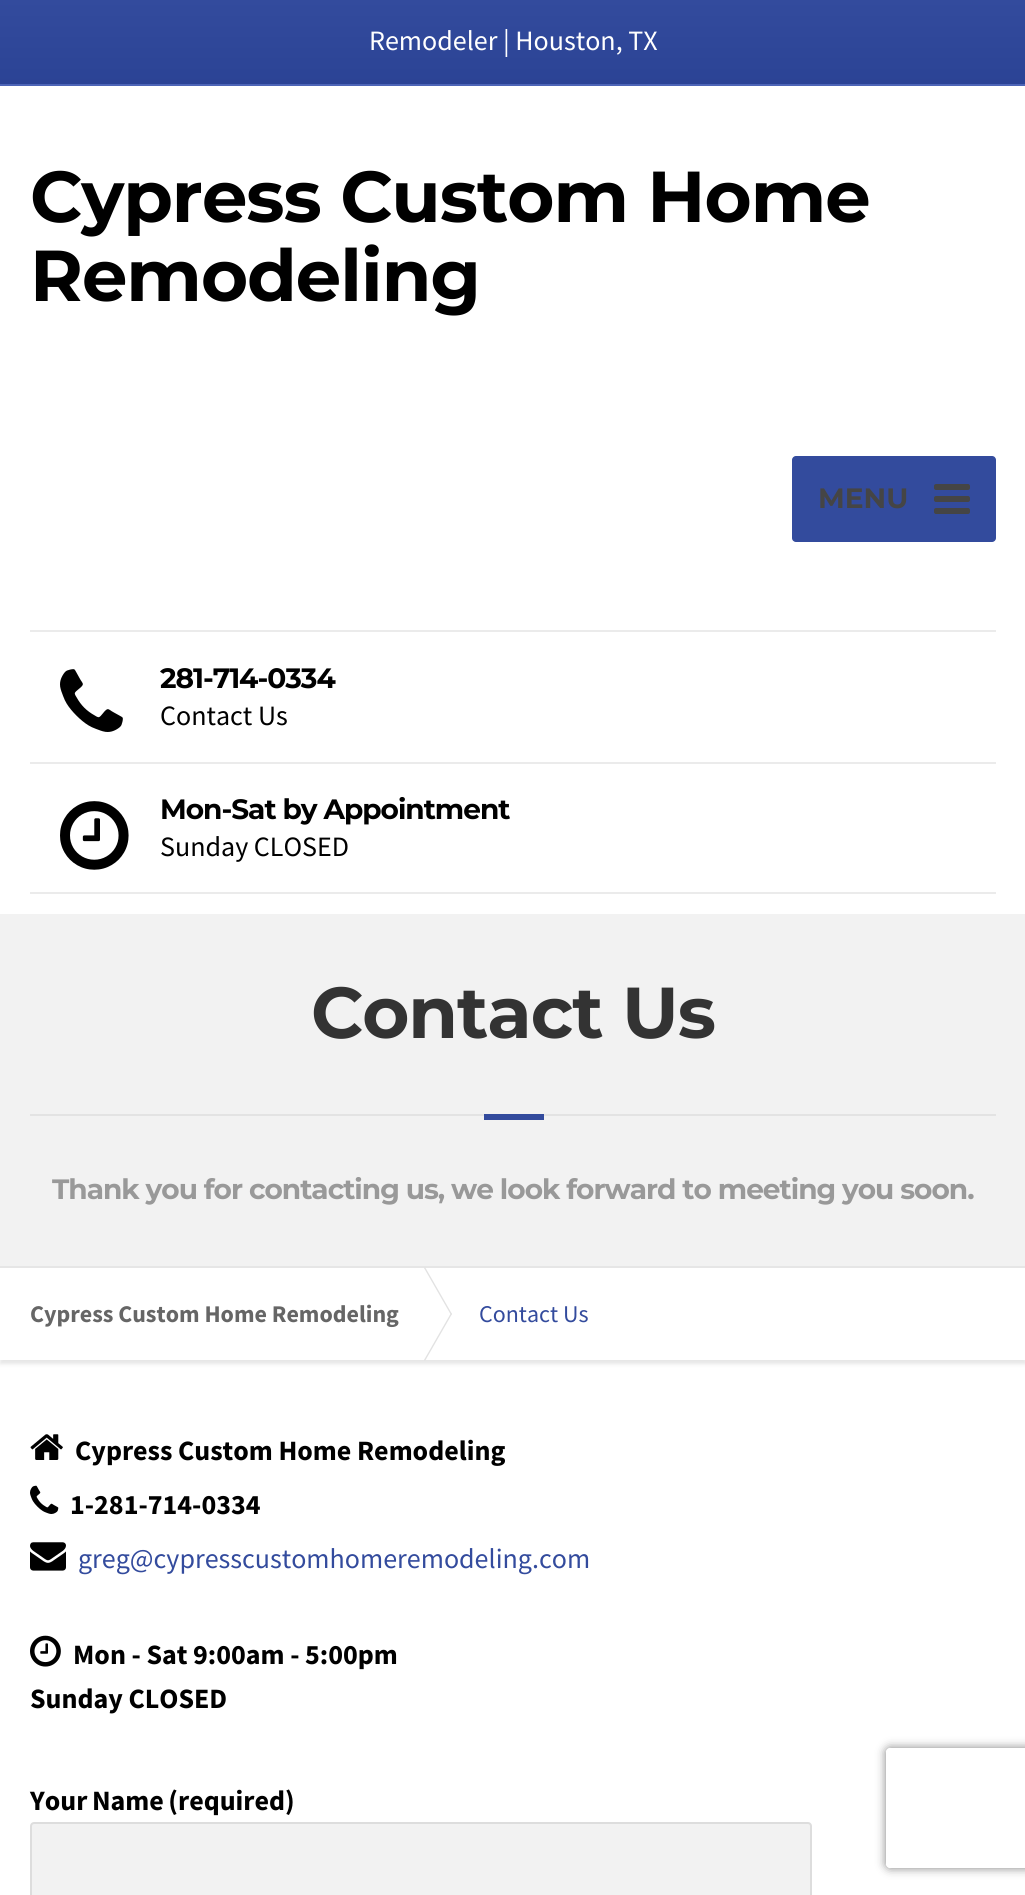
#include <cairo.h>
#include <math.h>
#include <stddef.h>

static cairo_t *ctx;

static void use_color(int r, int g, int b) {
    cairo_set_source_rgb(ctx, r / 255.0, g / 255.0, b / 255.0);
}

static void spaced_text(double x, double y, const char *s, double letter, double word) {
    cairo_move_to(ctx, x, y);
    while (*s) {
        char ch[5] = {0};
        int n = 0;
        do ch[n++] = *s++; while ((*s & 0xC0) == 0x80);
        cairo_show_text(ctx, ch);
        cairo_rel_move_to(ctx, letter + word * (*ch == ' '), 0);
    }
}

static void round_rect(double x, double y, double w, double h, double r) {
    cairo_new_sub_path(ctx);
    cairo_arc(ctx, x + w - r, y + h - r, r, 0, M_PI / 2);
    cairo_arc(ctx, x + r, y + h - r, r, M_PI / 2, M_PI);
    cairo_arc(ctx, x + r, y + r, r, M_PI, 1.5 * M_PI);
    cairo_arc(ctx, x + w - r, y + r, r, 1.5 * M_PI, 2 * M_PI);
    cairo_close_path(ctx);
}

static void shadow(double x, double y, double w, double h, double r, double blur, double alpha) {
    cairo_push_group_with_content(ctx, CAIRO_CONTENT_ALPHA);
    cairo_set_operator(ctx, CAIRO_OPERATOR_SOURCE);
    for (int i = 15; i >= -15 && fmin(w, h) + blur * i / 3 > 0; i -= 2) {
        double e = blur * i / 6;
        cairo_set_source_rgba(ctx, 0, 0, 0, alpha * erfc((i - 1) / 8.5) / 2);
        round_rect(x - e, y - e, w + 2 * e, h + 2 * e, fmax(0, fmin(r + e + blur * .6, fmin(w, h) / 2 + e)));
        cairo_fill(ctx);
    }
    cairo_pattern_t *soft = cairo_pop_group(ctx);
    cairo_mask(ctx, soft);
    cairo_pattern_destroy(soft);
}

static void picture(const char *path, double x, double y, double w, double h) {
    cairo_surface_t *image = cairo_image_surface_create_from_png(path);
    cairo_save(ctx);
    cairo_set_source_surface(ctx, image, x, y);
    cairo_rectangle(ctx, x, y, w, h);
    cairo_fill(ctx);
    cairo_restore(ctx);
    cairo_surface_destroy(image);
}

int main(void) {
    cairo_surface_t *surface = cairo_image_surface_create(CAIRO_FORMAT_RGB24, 1025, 1895);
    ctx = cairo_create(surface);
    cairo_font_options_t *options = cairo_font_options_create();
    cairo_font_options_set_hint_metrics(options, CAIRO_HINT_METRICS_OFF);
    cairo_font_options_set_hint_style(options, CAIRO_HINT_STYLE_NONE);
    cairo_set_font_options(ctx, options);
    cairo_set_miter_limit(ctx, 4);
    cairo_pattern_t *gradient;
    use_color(255, 255, 255);
    cairo_paint(ctx);
    gradient = cairo_pattern_create_linear(513, 0, 513, 84);
    cairo_pattern_add_color_stop_rgba(gradient, 0, 0.2, 0.294, 0.616, 1);
    cairo_pattern_add_color_stop_rgba(gradient, 1, 0.169, 0.263, 0.584, 1);
    cairo_set_source(ctx, gradient);
    cairo_pattern_destroy(gradient);
    cairo_rectangle(ctx, 0, 0, 1025, 84);
    cairo_fill(ctx);
    use_color(77, 101, 183);
    cairo_rectangle(ctx, 0, 84, 1025, 2);
    cairo_fill(ctx);
    cairo_select_font_face(ctx, "Source Sans Pro", CAIRO_FONT_SLANT_NORMAL, CAIRO_FONT_WEIGHT_NORMAL);
    cairo_set_font_size(ctx, 28);
    use_color(255, 255, 255);
    cairo_move_to(ctx, 369, 50);
    cairo_show_text(ctx, "Remodeler | Houston, TX");
    cairo_select_font_face(ctx, "Montserrat", CAIRO_FONT_SLANT_NORMAL, CAIRO_FONT_WEIGHT_BOLD);
    cairo_set_font_size(ctx, 72);
    use_color(0, 0, 0);
    spaced_text(30, 222, "Cypress Custom Home", -1, 0);
    spaced_text(30, 301, "Remodeling", -1, 0);
    use_color(51, 75, 157);
    round_rect(792, 456, 204, 86, 4);
    cairo_fill(ctx);
    cairo_set_font_size(ctx, 28);
    use_color(69, 69, 69);
    cairo_move_to(ctx, 818, 508);
    cairo_show_text(ctx, "MENU");
    round_rect(934, 484, 36, 6, 2);
    cairo_fill(ctx);
    round_rect(934, 496, 36, 6, 2);
    cairo_fill(ctx);
    round_rect(934, 508, 36, 6, 2);
    cairo_fill(ctx);
    use_color(235, 235, 235);
    cairo_rectangle(ctx, 30, 630, 966, 2);
    cairo_fill(ctx);
    cairo_rectangle(ctx, 30, 762, 966, 2);
    cairo_fill(ctx);
    picture("img1.png", 60, 669, 63, 63);
    use_color(0, 0, 0);
    spaced_text(160, 688, "281-714-0334", -1, 0);
    cairo_select_font_face(ctx, "Source Sans Pro", CAIRO_FONT_SLANT_NORMAL, CAIRO_FONT_WEIGHT_NORMAL);
    cairo_move_to(ctx, 160, 725);
    cairo_show_text(ctx, "Contact Us");
    use_color(235, 235, 235);
    cairo_rectangle(ctx, 30, 892, 966, 2);
    cairo_fill(ctx);
    picture("img2.png", 60, 801, 69, 69);
    cairo_select_font_face(ctx, "Montserrat", CAIRO_FONT_SLANT_NORMAL, CAIRO_FONT_WEIGHT_BOLD);
    use_color(0, 0, 0);
    spaced_text(160, 819, "Mon-Sat by Appointment", -1, 0);
    cairo_select_font_face(ctx, "Source Sans Pro", CAIRO_FONT_SLANT_NORMAL, CAIRO_FONT_WEIGHT_NORMAL);
    cairo_move_to(ctx, 160, 856);
    cairo_show_text(ctx, "Sunday CLOSED");
    use_color(242, 242, 242);
    cairo_rectangle(ctx, 0, 914, 1025, 352);
    cairo_fill(ctx);
    use_color(230, 230, 230);
    cairo_rectangle(ctx, 0, 1266, 1025, 2);
    cairo_fill(ctx);
    cairo_select_font_face(ctx, "Montserrat", CAIRO_FONT_SLANT_NORMAL, CAIRO_FONT_WEIGHT_BOLD);
    cairo_set_font_size(ctx, 72);
    use_color(51, 51, 51);
    spaced_text(311, 1038, "Contact Us", -1, 0);
    use_color(227, 227, 227);
    cairo_rectangle(ctx, 30, 1114, 966, 2);
    cairo_fill(ctx);
    use_color(51, 75, 157);
    cairo_rectangle(ctx, 484, 1114, 60, 6);
    cairo_fill(ctx);
    cairo_set_font_size(ctx, 28);
    use_color(153, 153, 153);
    spaced_text(52, 1199, "Thank you for contacting us, we look forward to meeting you soon.", -1, 0);
    cairo_save(ctx);
    cairo_rectangle(ctx, 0, 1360, 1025, 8);
    cairo_clip(ctx);
    use_color(230, 230, 230);
    shadow(0, 1272, 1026, 92, 0, 2, 1);
    cairo_restore(ctx);
    cairo_select_font_face(ctx, "Source Sans Pro", CAIRO_FONT_SLANT_NORMAL, CAIRO_FONT_WEIGHT_BOLD);
    cairo_set_font_size(ctx, 24);
    use_color(102, 102, 102);
    cairo_move_to(ctx, 30, 1322);
    cairo_show_text(ctx, "Cypress Custom Home Remodeling");
    use_color(226, 226, 226);
    cairo_new_path(ctx);
    cairo_move_to(ctx, 424, 1268);
    cairo_line_to(ctx, 425, 1267);
    cairo_line_to(ctx, 452, 1314);
    cairo_line_to(ctx, 451, 1315);
    cairo_close_path(ctx);
    cairo_fill(ctx);
    cairo_new_path(ctx);
    cairo_move_to(ctx, 451, 1313);
    cairo_line_to(ctx, 452, 1314);
    cairo_line_to(ctx, 425, 1361);
    cairo_line_to(ctx, 424, 1360);
    cairo_close_path(ctx);
    cairo_fill(ctx);
    cairo_select_font_face(ctx, "Source Sans Pro", CAIRO_FONT_SLANT_NORMAL, CAIRO_FONT_WEIGHT_NORMAL);
    use_color(51, 75, 157);
    cairo_move_to(ctx, 479, 1322);
    cairo_show_text(ctx, "Contact Us");
    picture("img3.png", 30, 1434, 33, 26);
    cairo_select_font_face(ctx, "Source Sans Pro", CAIRO_FONT_SLANT_NORMAL, CAIRO_FONT_WEIGHT_BOLD);
    cairo_set_font_size(ctx, 28);
    use_color(0, 0, 0);
    cairo_move_to(ctx, 75, 1460);
    cairo_show_text(ctx, "Cypress Custom Home Remodeling");
    picture("img4.png", 30, 1485, 29, 29);
    cairo_move_to(ctx, 70, 1514);
    cairo_show_text(ctx, "1-281-714-0334");
    picture("img5.png", 30, 1542, 36, 29);
    cairo_select_font_face(ctx, "Source Sans Pro", CAIRO_FONT_SLANT_NORMAL, CAIRO_FONT_WEIGHT_NORMAL);
    use_color(51, 75, 157);
    cairo_move_to(ctx, 78, 1568);
    cairo_show_text(ctx, "greg@cypresscustomhomeremodeling.com");
    picture("img6.png", 30, 1635, 31, 32);
    cairo_select_font_face(ctx, "Source Sans Pro", CAIRO_FONT_SLANT_NORMAL, CAIRO_FONT_WEIGHT_BOLD);
    use_color(0, 0, 0);
    cairo_move_to(ctx, 73, 1664);
    cairo_show_text(ctx, "Mon - Sat 9:00am - 5:00pm");
    cairo_move_to(ctx, 30, 1708);
    cairo_show_text(ctx, "Sunday CLOSED");
    spaced_text(30, 1810, "Your Name (required)", 0, -1);
    use_color(242, 242, 242);
    round_rect(31, 1823, 780, 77, 3);
    cairo_fill_preserve(ctx);
    use_color(221, 221, 221);
    cairo_stroke(ctx);
    cairo_save(ctx);
    cairo_set_fill_rule(ctx, CAIRO_FILL_RULE_EVEN_ODD);
    cairo_new_path(ctx);
    cairo_move_to(ctx, 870, 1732);
    cairo_line_to(ctx, 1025, 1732);
    cairo_line_to(ctx, 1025, 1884);
    cairo_line_to(ctx, 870, 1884);
    cairo_close_path(ctx);
    cairo_move_to(ctx, 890, 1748);
    cairo_line_to(ctx, 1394, 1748);
    cairo_curve_to(ctx, 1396, 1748, 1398, 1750, 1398, 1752);
    cairo_line_to(ctx, 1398, 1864);
    cairo_curve_to(ctx, 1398, 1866, 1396, 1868, 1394, 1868);
    cairo_line_to(ctx, 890, 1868);
    cairo_curve_to(ctx, 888, 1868, 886, 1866, 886, 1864);
    cairo_line_to(ctx, 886, 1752);
    cairo_curve_to(ctx, 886, 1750, 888, 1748, 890, 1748);
    cairo_close_path(ctx);
    cairo_clip(ctx);
    use_color(128, 128, 128);
    shadow(886, 1748, 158, 120, 4, 5, 1);
    cairo_restore(ctx);
    cairo_surface_write_to_png(surface, "result.png");
    cairo_font_options_destroy(options);
    cairo_destroy(ctx);
    cairo_surface_destroy(surface);
    return 0;
}
